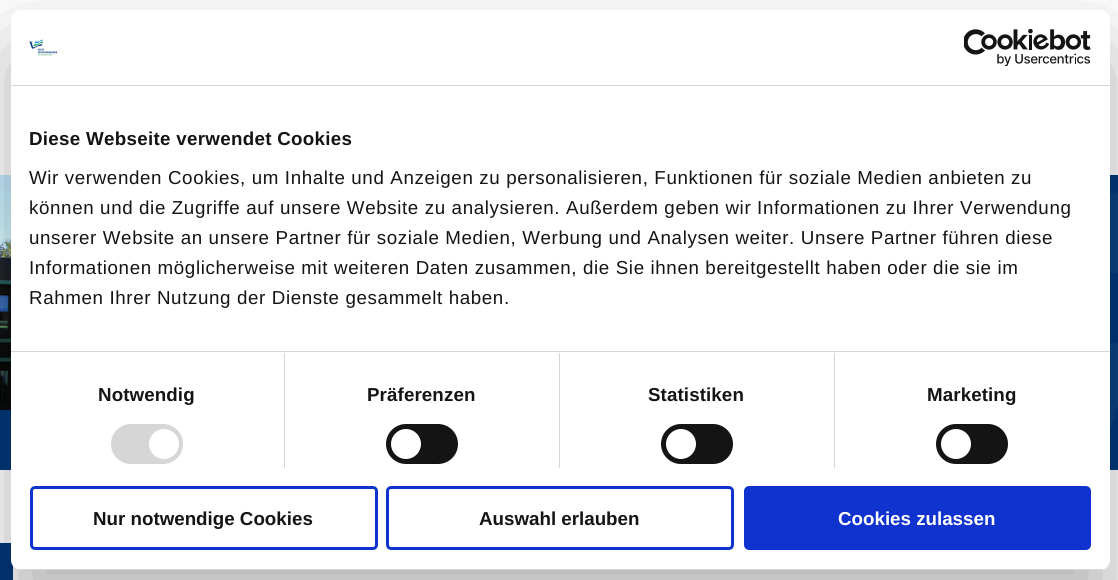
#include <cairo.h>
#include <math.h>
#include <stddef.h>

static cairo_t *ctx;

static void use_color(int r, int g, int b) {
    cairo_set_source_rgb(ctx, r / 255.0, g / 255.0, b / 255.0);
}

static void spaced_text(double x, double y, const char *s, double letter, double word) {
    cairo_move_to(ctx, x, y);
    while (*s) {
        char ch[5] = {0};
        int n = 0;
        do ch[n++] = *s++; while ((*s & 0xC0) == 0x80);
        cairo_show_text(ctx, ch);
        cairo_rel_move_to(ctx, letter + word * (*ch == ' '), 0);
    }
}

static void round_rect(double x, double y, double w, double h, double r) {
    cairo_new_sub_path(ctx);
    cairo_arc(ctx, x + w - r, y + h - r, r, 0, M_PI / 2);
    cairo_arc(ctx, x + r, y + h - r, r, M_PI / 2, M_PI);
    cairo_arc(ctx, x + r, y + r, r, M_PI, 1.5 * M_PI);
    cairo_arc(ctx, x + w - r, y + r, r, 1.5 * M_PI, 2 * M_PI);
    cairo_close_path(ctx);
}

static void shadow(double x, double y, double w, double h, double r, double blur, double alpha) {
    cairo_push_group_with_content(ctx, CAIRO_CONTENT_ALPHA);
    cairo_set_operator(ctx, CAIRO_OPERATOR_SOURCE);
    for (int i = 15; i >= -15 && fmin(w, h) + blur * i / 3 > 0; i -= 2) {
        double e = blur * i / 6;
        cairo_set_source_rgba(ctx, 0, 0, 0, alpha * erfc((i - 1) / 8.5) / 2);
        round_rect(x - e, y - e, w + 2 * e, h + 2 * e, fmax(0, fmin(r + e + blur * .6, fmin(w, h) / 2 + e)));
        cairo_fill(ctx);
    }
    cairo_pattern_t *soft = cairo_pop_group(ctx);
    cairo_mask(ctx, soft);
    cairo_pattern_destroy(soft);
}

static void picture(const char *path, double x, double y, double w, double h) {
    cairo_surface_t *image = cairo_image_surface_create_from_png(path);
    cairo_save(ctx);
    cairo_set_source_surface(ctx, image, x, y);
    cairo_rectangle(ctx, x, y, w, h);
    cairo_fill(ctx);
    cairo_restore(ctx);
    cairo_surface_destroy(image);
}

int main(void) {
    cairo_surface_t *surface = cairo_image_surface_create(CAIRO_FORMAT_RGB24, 1118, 580);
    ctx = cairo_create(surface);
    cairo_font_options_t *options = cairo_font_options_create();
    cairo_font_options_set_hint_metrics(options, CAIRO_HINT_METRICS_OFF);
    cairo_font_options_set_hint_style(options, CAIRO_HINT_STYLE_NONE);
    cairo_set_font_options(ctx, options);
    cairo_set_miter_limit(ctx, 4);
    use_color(255, 255, 255);
    cairo_paint(ctx);
    use_color(0, 55, 125);
    cairo_rectangle(ctx, 0, 175, 1118, 295);
    cairo_fill(ctx);
    picture("img3.png", 1110, 192, 8, 237);
    picture("img4.png", 0, 175, 11, 235);
    cairo_rectangle(ctx, 0, 543, 13, 37);
    cairo_fill(ctx);
    use_color(0, 0, 0);
    shadow(11, 50, 1099, 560, 10, 42.5, 0.3);
    use_color(255, 255, 255);
    round_rect(11, 10, 1099, 560, 10);
    cairo_fill(ctx);
    use_color(214, 214, 214);
    cairo_rectangle(ctx, 11, 85, 1099, 1);
    cairo_fill(ctx);
    picture("img1.png", 29, 39, 28, 17);
    picture("img2.png", 964, 29, 127, 37);
    cairo_rectangle(ctx, 11, 351, 1099, 1);
    cairo_fill(ctx);
    cairo_select_font_face(ctx, "Liberation Sans", CAIRO_FONT_SLANT_NORMAL, CAIRO_FONT_WEIGHT_BOLD);
    cairo_set_font_size(ctx, 18.75);
    use_color(20, 20, 20);
    spaced_text(29, 145, "Diese Webseite verwendet Cookies", 0.3, 0);
    cairo_select_font_face(ctx, "Liberation Sans", CAIRO_FONT_SLANT_NORMAL, CAIRO_FONT_WEIGHT_NORMAL);
    spaced_text(29, 184, "Wir verwenden Cookies, um Inhalte und Anzeigen zu personalisieren, Funktionen für soziale Medien anbieten zu", 0.62, 0);
    spaced_text(29, 214, "können und die Zugriffe auf unsere Website zu analysieren. Außerdem geben wir Informationen zu Ihrer Verwendung", 0.62, 0);
    spaced_text(29, 244, "unserer Website an unsere Partner für soziale Medien, Werbung und Analysen weiter. Unsere Partner führen diese", 0.62, 0);
    spaced_text(29, 274, "Informationen möglicherweise mit weiteren Daten zusammen, die Sie ihnen bereitgestellt haben oder die sie im", 0.62, 0);
    spaced_text(29, 304, "Rahmen Ihrer Nutzung der Dienste gesammelt haben.", 0.62, 0);
    use_color(214, 214, 214);
    cairo_rectangle(ctx, 284, 353, 1, 115);
    cairo_fill(ctx);
    cairo_select_font_face(ctx, "Liberation Sans", CAIRO_FONT_SLANT_NORMAL, CAIRO_FONT_WEIGHT_BOLD);
    use_color(20, 20, 20);
    spaced_text(98, 401, "Notwendig", 0.1, 0);
    use_color(214, 214, 214);
    round_rect(111, 424, 72, 40, 20);
    cairo_fill(ctx);
    use_color(255, 255, 255);
    cairo_arc(ctx, 164, 444, 15, 0, 2 * M_PI);
    cairo_fill(ctx);
    use_color(214, 214, 214);
    cairo_rectangle(ctx, 559, 353, 1, 115);
    cairo_fill(ctx);
    use_color(20, 20, 20);
    spaced_text(367, 401, "Präferenzen", 0.1, 0);
    round_rect(386, 424, 72, 40, 20);
    cairo_fill(ctx);
    use_color(255, 255, 255);
    cairo_arc(ctx, 406, 444, 15, 0, 2 * M_PI);
    cairo_fill(ctx);
    use_color(214, 214, 214);
    cairo_rectangle(ctx, 834, 353, 1, 115);
    cairo_fill(ctx);
    use_color(20, 20, 20);
    spaced_text(648, 401, "Statistiken", 0.1, 0);
    round_rect(661, 424, 72, 40, 20);
    cairo_fill(ctx);
    use_color(255, 255, 255);
    cairo_arc(ctx, 681, 444, 15, 0, 2 * M_PI);
    cairo_fill(ctx);
    use_color(20, 20, 20);
    spaced_text(927, 401, "Marketing", 0.1, 0);
    round_rect(936, 424, 72, 40, 20);
    cairo_fill(ctx);
    use_color(255, 255, 255);
    cairo_arc(ctx, 956, 444, 15, 0, 2 * M_PI);
    cairo_fill(ctx);
    cairo_save(ctx);
    round_rect(11, 10, 1099, 560, 10);
    cairo_clip(ctx);
    use_color(214, 214, 214);
    cairo_rectangle(ctx, 11, 569, 1099, 1);
    cairo_fill(ctx);
    cairo_restore(ctx);
    round_rect(31.5, 487.5, 345, 61, 3.5);
    use_color(16, 50, 207);
    cairo_set_line_width(ctx, 3);
    cairo_stroke(ctx);
    use_color(20, 20, 20);
    cairo_move_to(ctx, 93, 525);
    cairo_show_text(ctx, "Nur notwendige Cookies");
    round_rect(387.5, 487.5, 345, 61, 3.5);
    use_color(16, 50, 207);
    cairo_stroke(ctx);
    use_color(20, 20, 20);
    cairo_move_to(ctx, 479, 525);
    cairo_show_text(ctx, "Auswahl erlauben");
    use_color(16, 50, 207);
    round_rect(745.5, 487.5, 344, 61, 3.5);
    cairo_fill_preserve(ctx);
    cairo_stroke(ctx);
    use_color(255, 255, 255);
    cairo_move_to(ctx, 838, 525);
    cairo_show_text(ctx, "Cookies zulassen");
    cairo_surface_write_to_png(surface, "result.png");
    cairo_font_options_destroy(options);
    cairo_destroy(ctx);
    cairo_surface_destroy(surface);
    return 0;
}
